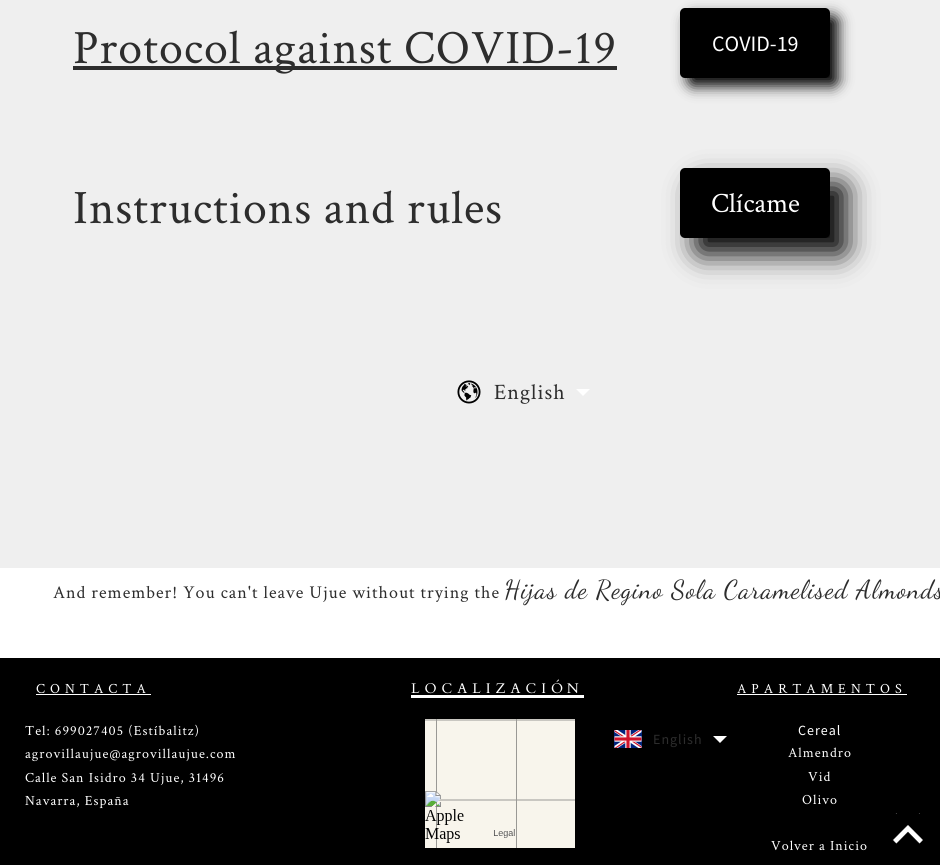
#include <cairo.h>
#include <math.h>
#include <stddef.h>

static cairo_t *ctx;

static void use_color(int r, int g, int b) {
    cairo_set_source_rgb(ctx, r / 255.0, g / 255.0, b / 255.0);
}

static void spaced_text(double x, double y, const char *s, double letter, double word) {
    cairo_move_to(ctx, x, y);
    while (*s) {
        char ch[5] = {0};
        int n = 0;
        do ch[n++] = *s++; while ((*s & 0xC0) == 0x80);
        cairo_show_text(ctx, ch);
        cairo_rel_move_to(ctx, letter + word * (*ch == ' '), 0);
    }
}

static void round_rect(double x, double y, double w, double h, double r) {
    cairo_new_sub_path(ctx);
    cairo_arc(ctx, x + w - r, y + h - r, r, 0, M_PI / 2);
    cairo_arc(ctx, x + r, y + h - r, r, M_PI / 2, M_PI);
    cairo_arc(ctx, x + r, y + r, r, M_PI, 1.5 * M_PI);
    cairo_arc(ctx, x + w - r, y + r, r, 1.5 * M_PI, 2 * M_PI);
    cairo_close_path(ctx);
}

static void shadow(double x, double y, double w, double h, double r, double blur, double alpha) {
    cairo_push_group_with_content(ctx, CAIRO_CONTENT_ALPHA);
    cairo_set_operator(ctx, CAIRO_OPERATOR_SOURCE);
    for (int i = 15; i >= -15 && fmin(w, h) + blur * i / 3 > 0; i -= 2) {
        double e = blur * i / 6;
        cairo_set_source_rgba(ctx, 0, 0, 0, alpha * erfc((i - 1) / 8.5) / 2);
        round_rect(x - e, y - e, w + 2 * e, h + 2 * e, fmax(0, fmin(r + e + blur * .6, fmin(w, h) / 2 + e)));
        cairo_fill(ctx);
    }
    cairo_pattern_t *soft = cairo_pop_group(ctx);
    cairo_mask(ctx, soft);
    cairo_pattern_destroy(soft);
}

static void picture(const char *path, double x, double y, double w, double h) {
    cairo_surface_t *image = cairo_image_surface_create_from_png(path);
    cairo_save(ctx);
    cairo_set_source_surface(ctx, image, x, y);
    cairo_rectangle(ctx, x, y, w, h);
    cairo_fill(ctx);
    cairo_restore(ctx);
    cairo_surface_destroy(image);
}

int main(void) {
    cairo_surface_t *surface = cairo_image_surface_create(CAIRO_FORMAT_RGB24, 940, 865);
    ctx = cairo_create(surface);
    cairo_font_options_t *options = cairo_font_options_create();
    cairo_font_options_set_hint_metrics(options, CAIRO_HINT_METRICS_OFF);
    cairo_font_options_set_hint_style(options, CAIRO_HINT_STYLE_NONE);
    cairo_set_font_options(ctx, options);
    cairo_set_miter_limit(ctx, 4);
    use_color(255, 255, 255);
    cairo_paint(ctx);
    use_color(239, 239, 239);
    cairo_rectangle(ctx, 0, 0, 940, 568);
    cairo_fill(ctx);
    use_color(45, 45, 45);
    cairo_rectangle(ctx, 73, 66, 544, 4);
    cairo_fill(ctx);
    cairo_select_font_face(ctx, "Crimson Text", CAIRO_FONT_SLANT_NORMAL, CAIRO_FONT_WEIGHT_NORMAL);
    cairo_set_font_size(ctx, 48);
    spaced_text(73, 63, "Protocol against COVID-19", 1, 0);
    use_color(0, 0, 0);
    shadow(688, 16, 150, 70, 5, 7, 1);
    use_color(0, 0, 0);
    round_rect(680, 8, 150, 70, 5);
    cairo_fill(ctx);
    cairo_select_font_face(ctx, "Source Sans Pro", CAIRO_FONT_SLANT_NORMAL, CAIRO_FONT_WEIGHT_NORMAL);
    cairo_set_font_size(ctx, 22);
    use_color(255, 255, 255);
    cairo_move_to(ctx, 712, 51);
    cairo_show_text(ctx, "COVID-19");
    cairo_select_font_face(ctx, "Crimson Text", CAIRO_FONT_SLANT_NORMAL, CAIRO_FONT_WEIGHT_NORMAL);
    cairo_set_font_size(ctx, 48);
    use_color(45, 45, 45);
    spaced_text(73, 223, "Instructions and rules", 1, 0);
    use_color(0, 0, 0);
    shadow(696, 184, 150, 70, 5, 14, 1);
    use_color(0, 0, 0);
    round_rect(680, 168, 150, 70, 5);
    cairo_fill(ctx);
    cairo_set_font_size(ctx, 28);
    use_color(255, 255, 255);
    cairo_move_to(ctx, 711, 212);
    cairo_show_text(ctx, "Clícame");
    picture("img1.png", 457, 380, 24, 24);
    cairo_set_font_size(ctx, 22);
    use_color(45, 45, 45);
    spaced_text(494, 399, "English", 1, 0);
    use_color(255, 255, 255);
    cairo_new_path(ctx);
    cairo_move_to(ctx, 576, 389);
    cairo_line_to(ctx, 583, 396);
    cairo_line_to(ctx, 590, 389);
    cairo_close_path(ctx);
    cairo_fill(ctx);
    cairo_set_font_size(ctx, 18);
    use_color(45, 45, 45);
    spaced_text(53, 598, "And remember! You can't leave Ujue without trying the", 1, 0);
    cairo_select_font_face(ctx, "Dancing Script", CAIRO_FONT_SLANT_NORMAL, CAIRO_FONT_WEIGHT_NORMAL);
    cairo_set_font_size(ctx, 26);
    spaced_text(504, 598, "Hijas de Regino Sola Caramelised Almonds", 1, 0);
    use_color(0, 0, 0);
    cairo_rectangle(ctx, 0, 658, 940, 207);
    cairo_fill(ctx);
    cairo_select_font_face(ctx, "Crimson Text", CAIRO_FONT_SLANT_NORMAL, CAIRO_FONT_WEIGHT_NORMAL);
    cairo_set_font_size(ctx, 14);
    use_color(255, 255, 255);
    spaced_text(36, 693, "CONTACTA", 5, 0);
    cairo_rectangle(ctx, 36, 694, 115, 1);
    cairo_fill(ctx);
    cairo_select_font_face(ctx, "Cardo", CAIRO_FONT_SLANT_NORMAL, CAIRO_FONT_WEIGHT_NORMAL);
    spaced_text(411, 693, "LOCALIZACIÓN", 5, 0);
    cairo_rectangle(ctx, 411, 695, 173, 3);
    cairo_fill(ctx);
    cairo_select_font_face(ctx, "Crimson Text", CAIRO_FONT_SLANT_NORMAL, CAIRO_FONT_WEIGHT_NORMAL);
    spaced_text(737, 693, "APARTAMENTOS", 5, 0);
    cairo_rectangle(ctx, 737, 694, 170, 1);
    cairo_fill(ctx);
    spaced_text(25, 735, "Tel: 699027405 (Estíbalitz)", 1, 0);
    spaced_text(25, 758, "agrovillaujue@agrovillaujue.com", 1, 0);
    spaced_text(25, 782, "Calle San Isidro 34 Ujue, 31496", 1, 0);
    spaced_text(25, 805, "Navarra, España", 1, 0);
    picture("img2.png", 425, 719, 150, 129);
    picture("img3.png", 614, 730, 28, 18);
    cairo_select_font_face(ctx, "Source Sans Pro", CAIRO_FONT_SLANT_NORMAL, CAIRO_FONT_WEIGHT_NORMAL);
    use_color(45, 45, 45);
    spaced_text(653, 744, "English", 1, 0);
    use_color(255, 255, 255);
    cairo_new_path(ctx);
    cairo_move_to(ctx, 713, 736);
    cairo_line_to(ctx, 720, 743);
    cairo_line_to(ctx, 727, 736);
    cairo_close_path(ctx);
    cairo_fill(ctx);
    spaced_text(798, 735, "Cereal", 1, 0);
    cairo_select_font_face(ctx, "Crimson Text", CAIRO_FONT_SLANT_NORMAL, CAIRO_FONT_WEIGHT_NORMAL);
    spaced_text(788, 757, "Almendro", 1, 0);
    spaced_text(808, 781, "Vid", 1, 0);
    spaced_text(802, 804, "Olivo", 1, 0);
    spaced_text(771, 850, "Volver a Inicio", 1, 0);
    picture("img4.png", 892, 813, 31, 31);
    cairo_surface_write_to_png(surface, "result.png");
    cairo_font_options_destroy(options);
    cairo_destroy(ctx);
    cairo_surface_destroy(surface);
    return 0;
}
